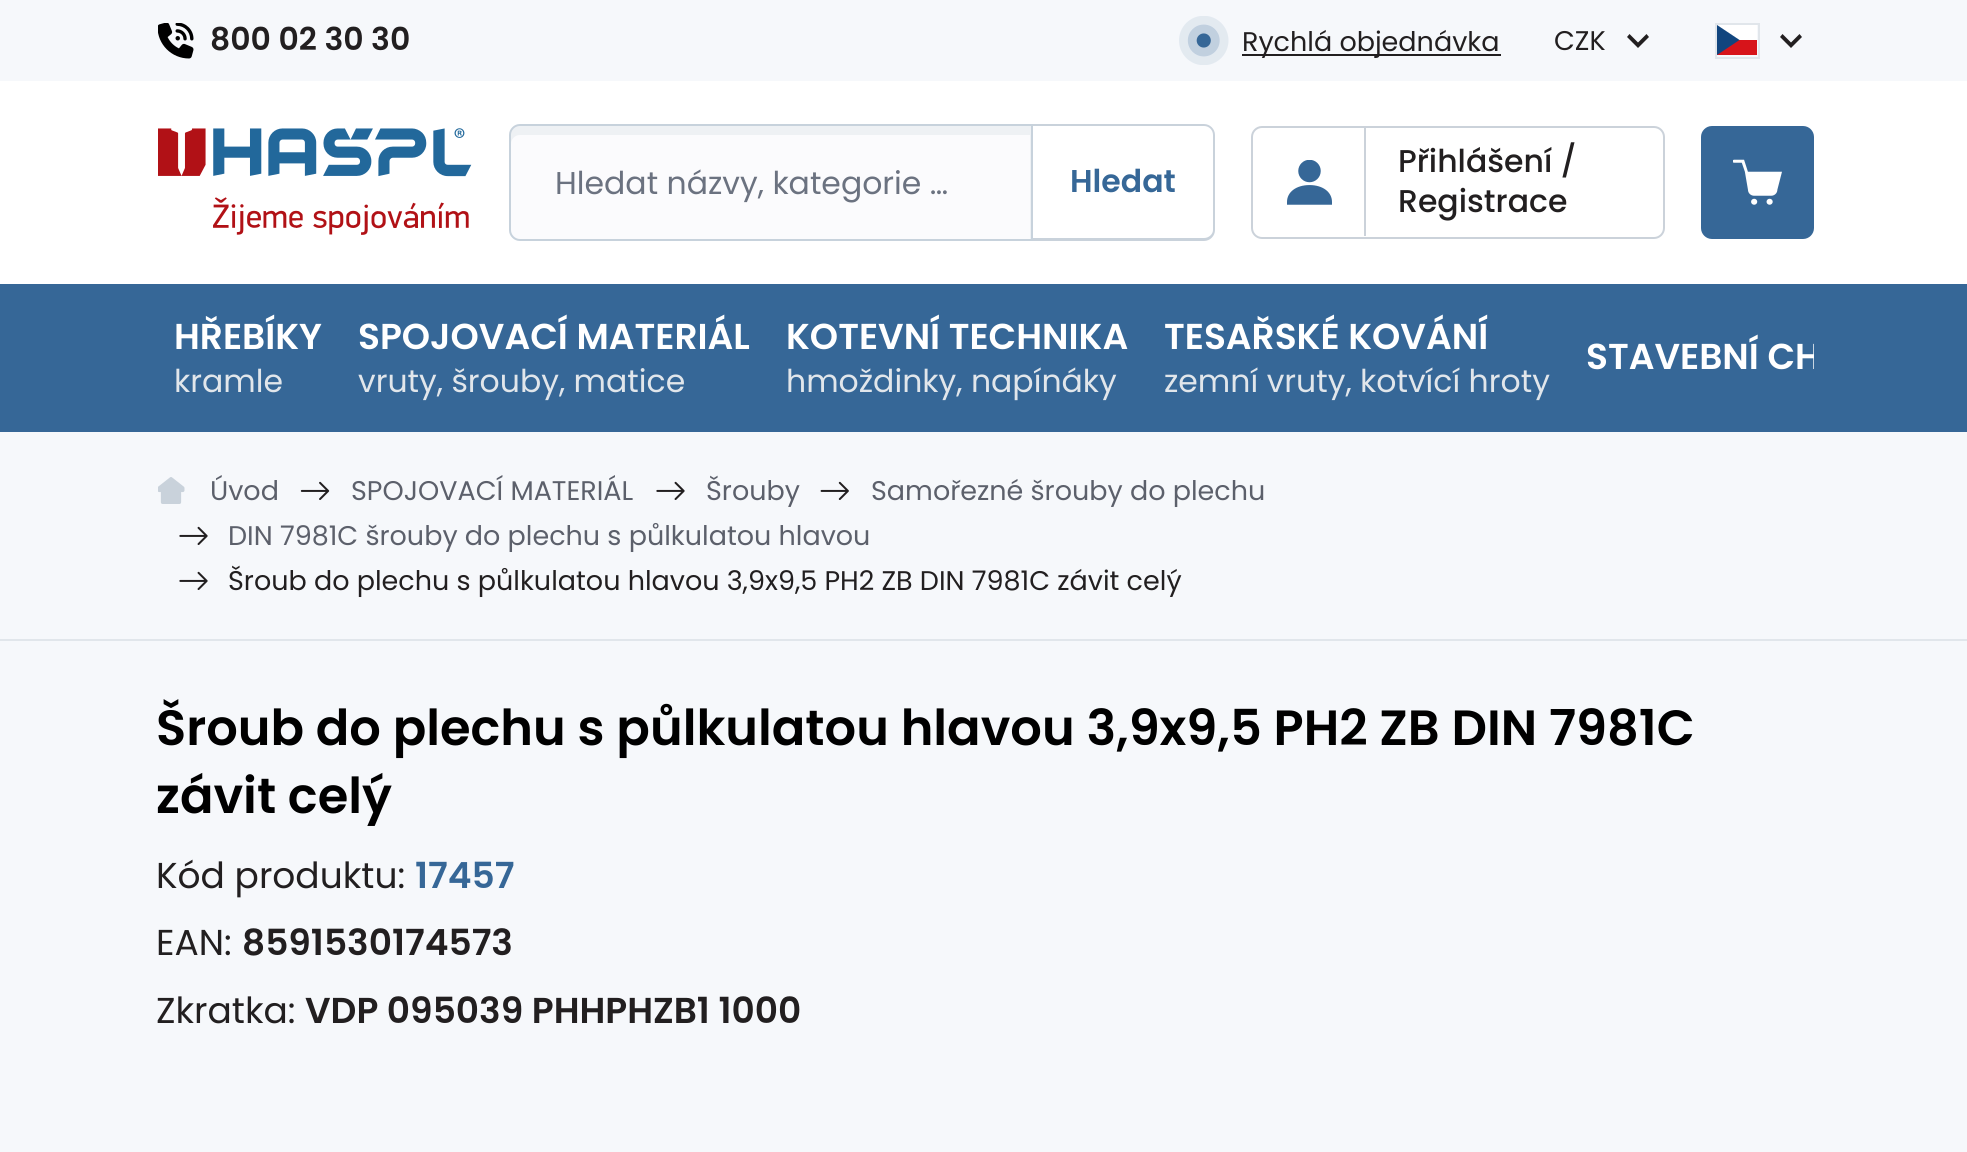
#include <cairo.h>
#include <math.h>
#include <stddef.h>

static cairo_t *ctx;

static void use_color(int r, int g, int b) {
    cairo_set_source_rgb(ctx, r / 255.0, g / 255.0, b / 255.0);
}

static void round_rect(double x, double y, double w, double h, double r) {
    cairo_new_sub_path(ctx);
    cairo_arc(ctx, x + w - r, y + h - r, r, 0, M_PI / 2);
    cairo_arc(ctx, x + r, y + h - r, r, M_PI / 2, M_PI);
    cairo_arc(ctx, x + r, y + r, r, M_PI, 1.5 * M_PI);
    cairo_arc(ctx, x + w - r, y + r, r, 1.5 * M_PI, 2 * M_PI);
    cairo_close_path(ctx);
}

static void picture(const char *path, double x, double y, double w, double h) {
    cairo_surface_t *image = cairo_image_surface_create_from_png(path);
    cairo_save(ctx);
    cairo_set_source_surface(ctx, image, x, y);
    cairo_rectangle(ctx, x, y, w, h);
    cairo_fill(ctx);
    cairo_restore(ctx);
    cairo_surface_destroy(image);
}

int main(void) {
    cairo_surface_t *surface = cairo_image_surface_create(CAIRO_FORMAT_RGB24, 1967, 1152);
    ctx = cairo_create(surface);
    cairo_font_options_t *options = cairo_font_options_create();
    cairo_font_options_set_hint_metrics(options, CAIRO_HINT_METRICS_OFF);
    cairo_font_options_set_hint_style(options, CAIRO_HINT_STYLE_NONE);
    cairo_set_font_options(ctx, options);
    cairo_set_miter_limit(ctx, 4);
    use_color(246, 248, 251);
    cairo_paint(ctx);
    picture("img1.png", 158, 23, 36, 36);
    cairo_select_font_face(ctx, "Poppins SemiBold", CAIRO_FONT_SLANT_NORMAL, CAIRO_FONT_WEIGHT_NORMAL);
    cairo_set_font_size(ctx, 31.5);
    use_color(34, 31, 32);
    cairo_move_to(ctx, 210, 50);
    cairo_show_text(ctx, "800 02 30 30");
    picture("img2.png", 1179, 16, 50, 49);
    cairo_rectangle(ctx, 1242, 54, 259, 2);
    cairo_fill(ctx);
    cairo_select_font_face(ctx, "Poppins", CAIRO_FONT_SLANT_NORMAL, CAIRO_FONT_WEIGHT_NORMAL);
    cairo_set_font_size(ctx, 27);
    cairo_move_to(ctx, 1242, 51);
    cairo_show_text(ctx, "Rychlá objednávka");
    cairo_move_to(ctx, 1554, 50);
    cairo_show_text(ctx, "CZK");
    cairo_new_path(ctx);
    cairo_move_to(ctx, 1629.5, 34);
    cairo_line_to(ctx, 1638, 42.5);
    cairo_line_to(ctx, 1646.5, 34);
    cairo_line_to(ctx, 1649, 37);
    cairo_line_to(ctx, 1638, 48);
    cairo_line_to(ctx, 1627, 37);
    cairo_close_path(ctx);
    cairo_fill(ctx);
    cairo_rectangle(ctx, 1716, 24, 43, 34);
    use_color(225, 230, 235);
    cairo_stroke(ctx);
    use_color(255, 255, 255);
    cairo_rectangle(ctx, 1717, 25, 40, 15);
    cairo_fill(ctx);
    use_color(215, 20, 26);
    cairo_rectangle(ctx, 1717, 40, 40, 15);
    cairo_fill(ctx);
    use_color(17, 69, 126);
    cairo_new_path(ctx);
    cairo_move_to(ctx, 1739.5, 40);
    cairo_line_to(ctx, 1717, 25);
    cairo_line_to(ctx, 1717, 55);
    cairo_close_path(ctx);
    cairo_fill(ctx);
    use_color(34, 31, 32);
    cairo_new_path(ctx);
    cairo_move_to(ctx, 1782.5, 34);
    cairo_line_to(ctx, 1791, 42.5);
    cairo_line_to(ctx, 1799.5, 34);
    cairo_line_to(ctx, 1802, 37);
    cairo_line_to(ctx, 1791, 48);
    cairo_line_to(ctx, 1780, 37);
    cairo_close_path(ctx);
    cairo_fill(ctx);
    use_color(255, 255, 255);
    cairo_rectangle(ctx, 0, 81, 1967, 203);
    cairo_fill(ctx);
    picture("img3.png", 158, 128, 314, 107);
    use_color(251, 251, 253);
    cairo_new_path(ctx);
    cairo_move_to(ctx, 520, 124);
    cairo_line_to(ctx, 1033, 124);
    cairo_line_to(ctx, 1033, 241);
    cairo_line_to(ctx, 520, 241);
    cairo_curve_to(ctx, 514, 241, 509, 236, 509, 230);
    cairo_line_to(ctx, 509, 135);
    cairo_curve_to(ctx, 509, 129, 514, 124, 520, 124);
    cairo_close_path(ctx);
    cairo_fill(ctx);
    use_color(238, 241, 244);
    cairo_new_path(ctx);
    cairo_move_to(ctx, 520, 135);
    cairo_line_to(ctx, 1030, 135);
    cairo_line_to(ctx, 1030, 239);
    cairo_line_to(ctx, 1031, 239);
    cairo_line_to(ctx, 1031, 126);
    cairo_line_to(ctx, 520, 126);
    cairo_curve_to(ctx, 515, 126, 511, 130, 511, 135);
    cairo_line_to(ctx, 511, 144);
    cairo_curve_to(ctx, 511, 139, 515, 135, 520, 135);
    cairo_close_path(ctx);
    cairo_fill(ctx);
    cairo_new_path(ctx);
    cairo_move_to(ctx, 520, 125);
    cairo_line_to(ctx, 1032, 125);
    cairo_line_to(ctx, 1032, 240);
    cairo_line_to(ctx, 520, 240);
    cairo_curve_to(ctx, 514.5, 240, 510, 235.5, 510, 230);
    cairo_line_to(ctx, 510, 135);
    cairo_curve_to(ctx, 510, 129.5, 514.5, 125, 520, 125);
    cairo_close_path(ctx);
    use_color(199, 210, 220);
    cairo_stroke(ctx);
    cairo_set_font_size(ctx, 31.5);
    use_color(107, 114, 128);
    cairo_move_to(ctx, 555, 194);
    cairo_show_text(ctx, "Hledat názvy, kategorie …");
    use_color(201, 210, 219);
    cairo_set_fill_rule(ctx, CAIRO_FILL_RULE_EVEN_ODD);
    cairo_new_path(ctx);
    cairo_move_to(ctx, 1033, 124);
    cairo_line_to(ctx, 1204, 124);
    cairo_curve_to(ctx, 1210, 124, 1215, 129, 1215, 135);
    cairo_line_to(ctx, 1215, 230);
    cairo_curve_to(ctx, 1215, 236, 1210, 241, 1204, 241);
    cairo_line_to(ctx, 1033, 241);
    cairo_close_path(ctx);
    cairo_move_to(ctx, 1033, 126);
    cairo_line_to(ctx, 1204, 126);
    cairo_curve_to(ctx, 1209, 126, 1213, 130, 1213, 135);
    cairo_line_to(ctx, 1213, 230);
    cairo_curve_to(ctx, 1213, 234, 1209, 238, 1204, 238);
    cairo_line_to(ctx, 1033, 238);
    cairo_close_path(ctx);
    cairo_fill(ctx);
    cairo_select_font_face(ctx, "Poppins SemiBold", CAIRO_FONT_SLANT_NORMAL, CAIRO_FONT_WEIGHT_NORMAL);
    use_color(54, 103, 151);
    cairo_move_to(ctx, 1070, 192);
    cairo_show_text(ctx, "Hledat");
    round_rect(1252, 127, 412, 111, 10);
    use_color(203, 210, 218);
    cairo_stroke(ctx);
    cairo_rectangle(ctx, 1364, 128, 2, 108);
    cairo_fill(ctx);
    picture("img4.png", 1287, 160, 45, 45);
    cairo_select_font_face(ctx, "Poppins Medium", CAIRO_FONT_SLANT_NORMAL, CAIRO_FONT_WEIGHT_NORMAL);
    use_color(34, 31, 32);
    cairo_move_to(ctx, 1398, 172);
    cairo_show_text(ctx, "Přihlášení /");
    cairo_move_to(ctx, 1398, 212);
    cairo_show_text(ctx, "Registrace");
    use_color(54, 103, 151);
    round_rect(1701, 126, 113, 113, 11);
    cairo_fill(ctx);
    picture("img5.png", 1733, 159, 49, 46);
    cairo_rectangle(ctx, 0, 284, 1967, 148);
    cairo_fill(ctx);
    cairo_select_font_face(ctx, "Poppins SemiBold", CAIRO_FONT_SLANT_NORMAL, CAIRO_FONT_WEIGHT_NORMAL);
    cairo_set_font_size(ctx, 36);
    use_color(255, 255, 255);
    cairo_move_to(ctx, 174, 349);
    cairo_show_text(ctx, "HŘEBÍKY");
    cairo_select_font_face(ctx, "Poppins", CAIRO_FONT_SLANT_NORMAL, CAIRO_FONT_WEIGHT_NORMAL);
    cairo_set_font_size(ctx, 31.5);
    use_color(225, 230, 235);
    cairo_move_to(ctx, 174, 392);
    cairo_show_text(ctx, "kramle");
    cairo_select_font_face(ctx, "Poppins SemiBold", CAIRO_FONT_SLANT_NORMAL, CAIRO_FONT_WEIGHT_NORMAL);
    cairo_set_font_size(ctx, 36);
    use_color(255, 255, 255);
    cairo_move_to(ctx, 358, 349);
    cairo_show_text(ctx, "SPOJOVACÍ MATERIÁL");
    cairo_select_font_face(ctx, "Poppins", CAIRO_FONT_SLANT_NORMAL, CAIRO_FONT_WEIGHT_NORMAL);
    cairo_set_font_size(ctx, 31.5);
    use_color(225, 230, 235);
    cairo_move_to(ctx, 358, 392);
    cairo_show_text(ctx, "vruty, šrouby, matice");
    cairo_select_font_face(ctx, "Poppins SemiBold", CAIRO_FONT_SLANT_NORMAL, CAIRO_FONT_WEIGHT_NORMAL);
    cairo_set_font_size(ctx, 36);
    use_color(255, 255, 255);
    cairo_move_to(ctx, 786, 349);
    cairo_show_text(ctx, "KOTEVNÍ TECHNIKA");
    cairo_select_font_face(ctx, "Poppins", CAIRO_FONT_SLANT_NORMAL, CAIRO_FONT_WEIGHT_NORMAL);
    cairo_set_font_size(ctx, 31.5);
    use_color(225, 230, 235);
    cairo_move_to(ctx, 786, 392);
    cairo_show_text(ctx, "hmoždinky, napínáky");
    cairo_select_font_face(ctx, "Poppins SemiBold", CAIRO_FONT_SLANT_NORMAL, CAIRO_FONT_WEIGHT_NORMAL);
    cairo_set_font_size(ctx, 36);
    use_color(255, 255, 255);
    cairo_move_to(ctx, 1164, 349);
    cairo_show_text(ctx, "TESAŘSKÉ KOVÁNÍ");
    cairo_select_font_face(ctx, "Poppins", CAIRO_FONT_SLANT_NORMAL, CAIRO_FONT_WEIGHT_NORMAL);
    cairo_set_font_size(ctx, 31.5);
    use_color(225, 230, 235);
    cairo_move_to(ctx, 1164, 392);
    cairo_show_text(ctx, "zemní vruty, kotvící hroty");
    cairo_save(ctx);
    cairo_set_fill_rule(ctx, CAIRO_FILL_RULE_WINDING);
    cairo_rectangle(ctx, 158, 284, 1656, 148);
    cairo_clip(ctx);
    cairo_select_font_face(ctx, "Poppins SemiBold", CAIRO_FONT_SLANT_NORMAL, CAIRO_FONT_WEIGHT_NORMAL);
    cairo_set_font_size(ctx, 36);
    use_color(255, 255, 255);
    cairo_move_to(ctx, 1586, 369);
    cairo_show_text(ctx, "STAVEBNÍ CH");
    cairo_restore(ctx);
    cairo_rectangle(ctx, 0, 639, 1967, 2);
    cairo_fill(ctx);
    picture("img6.png", 158, 477, 27, 27);
    cairo_set_font_size(ctx, 27);
    use_color(92, 96, 107);
    cairo_move_to(ctx, 210, 500);
    cairo_show_text(ctx, "Úvod");
    picture("img7.png", 300, 481, 30, 19);
    cairo_move_to(ctx, 351, 500);
    cairo_show_text(ctx, "SPOJOVACÍ MATERIÁL");
    picture("img8.png", 656, 481, 29, 19);
    cairo_move_to(ctx, 706, 500);
    cairo_show_text(ctx, "Šrouby");
    picture("img9.png", 820, 481, 29, 19);
    cairo_move_to(ctx, 871, 500);
    cairo_show_text(ctx, "Samořezné šrouby do plechu");
    picture("img8.png", 179, 526, 29, 19);
    cairo_move_to(ctx, 228, 545);
    cairo_show_text(ctx, "DIN 7981C šrouby do plechu s půlkulatou hlavou");
    picture("img8.png", 179, 571, 29, 19);
    use_color(34, 31, 32);
    cairo_move_to(ctx, 228, 590);
    cairo_show_text(ctx, "Šroub do plechu s půlkulatou hlavou 3,9x9,5 PH2 ZB DIN 7981C závit celý");
    cairo_select_font_face(ctx, "Poppins SemiBold", CAIRO_FONT_SLANT_NORMAL, CAIRO_FONT_WEIGHT_NORMAL);
    cairo_set_font_size(ctx, 49.5);
    use_color(0, 0, 0);
    cairo_move_to(ctx, 156, 745);
    cairo_show_text(ctx, "Šroub do plechu s půlkulatou hlavou 3,9x9,5 PH2 ZB DIN 7981C");
    cairo_move_to(ctx, 156, 813);
    cairo_show_text(ctx, "závit celý");
    cairo_select_font_face(ctx, "Poppins", CAIRO_FONT_SLANT_NORMAL, CAIRO_FONT_WEIGHT_NORMAL);
    cairo_set_font_size(ctx, 36);
    use_color(34, 31, 32);
    cairo_move_to(ctx, 156, 888);
    cairo_show_text(ctx, "Kód produktu:");
    cairo_select_font_face(ctx, "Poppins SemiBold", CAIRO_FONT_SLANT_NORMAL, CAIRO_FONT_WEIGHT_NORMAL);
    use_color(54, 103, 151);
    cairo_move_to(ctx, 415, 888);
    cairo_show_text(ctx, "17457");
    cairo_select_font_face(ctx, "Poppins", CAIRO_FONT_SLANT_NORMAL, CAIRO_FONT_WEIGHT_NORMAL);
    use_color(34, 31, 32);
    cairo_move_to(ctx, 156, 955);
    cairo_show_text(ctx, "EAN:");
    cairo_select_font_face(ctx, "Poppins SemiBold", CAIRO_FONT_SLANT_NORMAL, CAIRO_FONT_WEIGHT_NORMAL);
    cairo_move_to(ctx, 242, 955);
    cairo_show_text(ctx, "8591530174573");
    cairo_select_font_face(ctx, "Poppins", CAIRO_FONT_SLANT_NORMAL, CAIRO_FONT_WEIGHT_NORMAL);
    cairo_move_to(ctx, 156, 1023);
    cairo_show_text(ctx, "Zkratka:");
    cairo_select_font_face(ctx, "Poppins SemiBold", CAIRO_FONT_SLANT_NORMAL, CAIRO_FONT_WEIGHT_NORMAL);
    cairo_move_to(ctx, 305, 1023);
    cairo_show_text(ctx, "VDP 095039 PHHPHZB1 1000");
    cairo_surface_write_to_png(surface, "result.png");
    cairo_font_options_destroy(options);
    cairo_destroy(ctx);
    cairo_surface_destroy(surface);
    return 0;
}
